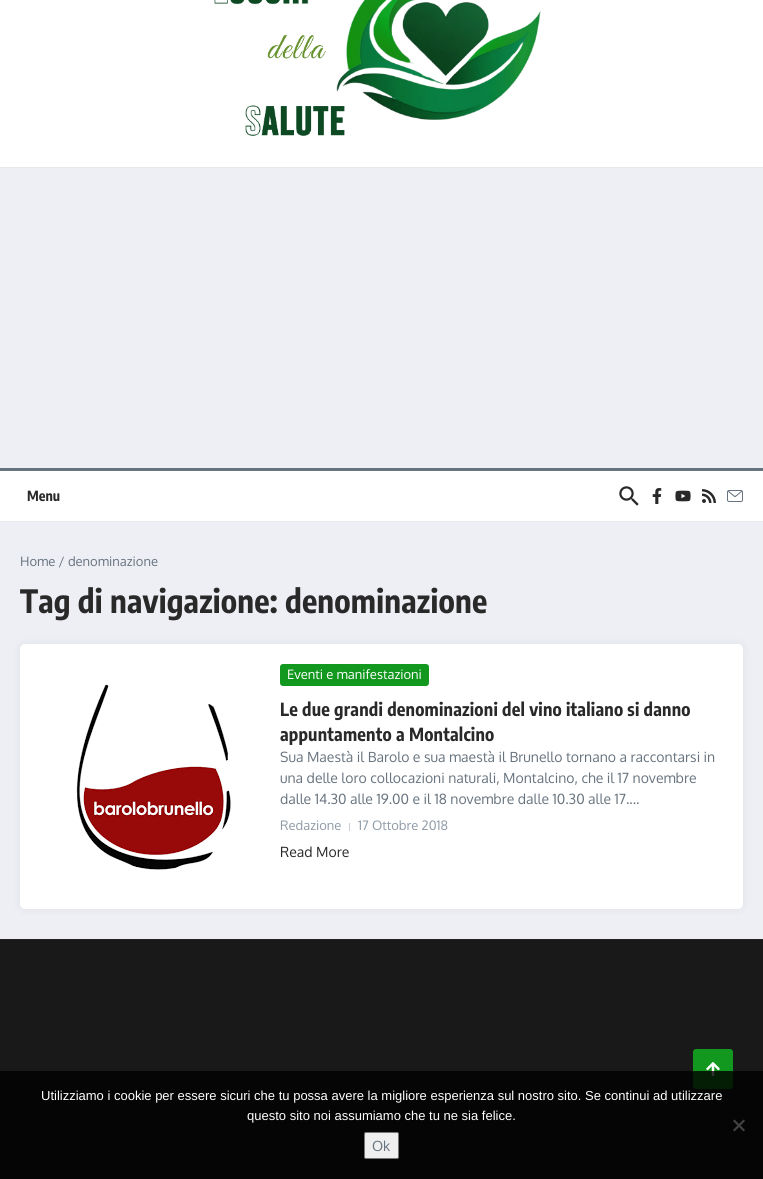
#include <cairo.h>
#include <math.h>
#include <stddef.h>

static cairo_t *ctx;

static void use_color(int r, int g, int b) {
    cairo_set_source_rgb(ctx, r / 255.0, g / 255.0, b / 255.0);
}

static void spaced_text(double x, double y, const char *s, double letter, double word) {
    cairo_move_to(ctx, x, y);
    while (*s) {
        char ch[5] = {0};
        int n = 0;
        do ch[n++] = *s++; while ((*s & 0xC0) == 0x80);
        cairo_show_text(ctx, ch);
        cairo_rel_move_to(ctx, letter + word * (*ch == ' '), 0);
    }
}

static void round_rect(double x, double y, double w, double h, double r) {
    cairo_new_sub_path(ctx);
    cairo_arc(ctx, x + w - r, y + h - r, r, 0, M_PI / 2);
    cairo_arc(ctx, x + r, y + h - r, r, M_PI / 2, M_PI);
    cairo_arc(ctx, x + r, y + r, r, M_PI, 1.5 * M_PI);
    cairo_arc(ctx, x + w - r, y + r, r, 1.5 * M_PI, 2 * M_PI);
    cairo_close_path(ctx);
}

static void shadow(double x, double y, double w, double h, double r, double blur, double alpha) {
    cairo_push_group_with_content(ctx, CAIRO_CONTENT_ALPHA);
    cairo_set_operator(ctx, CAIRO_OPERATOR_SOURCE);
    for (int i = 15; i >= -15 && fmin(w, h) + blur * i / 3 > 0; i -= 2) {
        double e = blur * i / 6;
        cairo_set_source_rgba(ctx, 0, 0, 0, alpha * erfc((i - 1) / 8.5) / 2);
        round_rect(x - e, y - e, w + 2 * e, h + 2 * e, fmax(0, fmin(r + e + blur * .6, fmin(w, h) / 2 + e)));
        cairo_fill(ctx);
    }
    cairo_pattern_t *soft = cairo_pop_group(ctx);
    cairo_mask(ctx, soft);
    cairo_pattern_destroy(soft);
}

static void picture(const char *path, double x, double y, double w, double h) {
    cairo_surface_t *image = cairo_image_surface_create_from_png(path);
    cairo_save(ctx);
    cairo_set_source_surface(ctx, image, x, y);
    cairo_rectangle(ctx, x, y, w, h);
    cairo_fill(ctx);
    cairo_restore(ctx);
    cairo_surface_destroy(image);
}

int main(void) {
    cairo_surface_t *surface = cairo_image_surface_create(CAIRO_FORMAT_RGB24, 763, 1179);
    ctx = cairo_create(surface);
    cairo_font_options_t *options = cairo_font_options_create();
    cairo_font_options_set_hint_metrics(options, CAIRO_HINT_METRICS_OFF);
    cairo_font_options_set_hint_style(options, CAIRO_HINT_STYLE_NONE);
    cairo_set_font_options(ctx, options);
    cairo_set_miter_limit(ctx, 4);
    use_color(238, 238, 245);
    cairo_paint(ctx);
    use_color(255, 255, 255);
    cairo_rectangle(ctx, 0, 0, 763, 167);
    cairo_fill(ctx);
    use_color(232, 232, 232);
    cairo_rectangle(ctx, 0, 167, 763, 1);
    cairo_fill(ctx);
    picture("img1.png", 214, 0, 327, 136);
    use_color(103, 115, 126);
    cairo_rectangle(ctx, 0, 468, 763, 3);
    cairo_fill(ctx);
    use_color(255, 255, 255);
    cairo_rectangle(ctx, 0, 471, 763, 50);
    cairo_fill(ctx);
    use_color(232, 232, 232);
    cairo_rectangle(ctx, 0, 521, 763, 1);
    cairo_fill(ctx);
    cairo_select_font_face(ctx, "Encode Sans Condensed", CAIRO_FONT_SLANT_NORMAL, CAIRO_FONT_WEIGHT_BOLD);
    cairo_set_font_size(ctx, 14);
    use_color(41, 41, 41);
    cairo_move_to(ctx, 27, 501);
    cairo_show_text(ctx, "Menu");
    picture("img2.png", 619, 486, 20, 20);
    picture("img3.png", 652, 488, 10, 16);
    picture("img4.png", 675, 490, 16, 12);
    picture("img5.png", 702, 489, 14, 14);
    picture("img6.png", 727, 490, 16, 12);
    cairo_select_font_face(ctx, "Oxygen", CAIRO_FONT_SLANT_NORMAL, CAIRO_FONT_WEIGHT_NORMAL);
    cairo_set_font_size(ctx, 13);
    use_color(103, 115, 126);
    cairo_move_to(ctx, 20, 566);
    cairo_show_text(ctx, "Home / denominazione");
    cairo_select_font_face(ctx, "Encode Sans Condensed", CAIRO_FONT_SLANT_NORMAL, CAIRO_FONT_WEIGHT_BOLD);
    cairo_set_font_size(ctx, 32);
    use_color(41, 41, 41);
    spaced_text(20, 613, "Tag di navigazione: denominazione", 0.2, 0);
    use_color(0, 0, 0);
    shadow(19, 643, 725, 267, 6, 4, 0.05);
    use_color(255, 255, 255);
    round_rect(20, 644, 723, 265, 5);
    cairo_fill(ctx);
    picture("img7.png", 76, 684, 155, 186);
    use_color(18, 151, 31);
    round_rect(280, 664, 149, 22, 3);
    cairo_fill(ctx);
    cairo_select_font_face(ctx, "Oxygen", CAIRO_FONT_SLANT_NORMAL, CAIRO_FONT_WEIGHT_NORMAL);
    cairo_set_font_size(ctx, 13);
    use_color(255, 255, 255);
    cairo_move_to(ctx, 287, 679);
    cairo_show_text(ctx, "Eventi e manifestazioni");
    cairo_select_font_face(ctx, "Encode Sans Condensed", CAIRO_FONT_SLANT_NORMAL, CAIRO_FONT_WEIGHT_BOLD);
    cairo_set_font_size(ctx, 18);
    use_color(41, 41, 41);
    spaced_text(280, 716, "Le due grandi denominazioni del vino italiano si danno", 0.2, 0);
    spaced_text(280, 741, "appuntamento a Montalcino", 0.2, 0);
    cairo_select_font_face(ctx, "Oxygen", CAIRO_FONT_SLANT_NORMAL, CAIRO_FONT_WEIGHT_NORMAL);
    cairo_set_font_size(ctx, 14);
    use_color(103, 115, 126);
    cairo_move_to(ctx, 280, 762);
    cairo_show_text(ctx, "Sua Maestà il Barolo e sua maestà il Brunello tornano a raccontarsi in");
    cairo_move_to(ctx, 280, 783);
    cairo_show_text(ctx, "una delle loro collocazioni naturali, Montalcino, che il 17 novembre");
    cairo_move_to(ctx, 280, 804);
    cairo_show_text(ctx, "dalle 14.30 alle 19.00 e il 18 novembre dalle 10.30 alle 17....");
    cairo_set_font_size(ctx, 13);
    use_color(142, 155, 167);
    cairo_move_to(ctx, 280, 830);
    cairo_show_text(ctx, "Redazione");
    use_color(199, 205, 211);
    cairo_rectangle(ctx, 349, 823, 1, 8);
    cairo_fill(ctx);
    use_color(142, 155, 167);
    cairo_move_to(ctx, 358, 830);
    cairo_show_text(ctx, "17 Ottobre 2018");
    cairo_set_font_size(ctx, 14);
    use_color(41, 41, 41);
    cairo_move_to(ctx, 280, 857);
    cairo_show_text(ctx, "Read More");
    use_color(25, 25, 25);
    cairo_rectangle(ctx, 0, 940, 763, 239);
    cairo_fill(ctx);
    use_color(34, 34, 34);
    cairo_rectangle(ctx, 0, 939, 763, 1);
    cairo_fill(ctx);
    use_color(18, 151, 31);
    round_rect(693, 1049, 40, 40, 3);
    cairo_fill(ctx);
    picture("img8.png", 706, 1062, 14, 14);
    cairo_set_source_rgba(ctx, 0, 0, 0, 0.8);
    cairo_rectangle(ctx, 0, 1071, 763, 108);
    cairo_fill(ctx);
    cairo_select_font_face(ctx, "Liberation Sans", CAIRO_FONT_SLANT_NORMAL, CAIRO_FONT_WEIGHT_NORMAL);
    cairo_set_font_size(ctx, 13);
    use_color(255, 255, 255);
    cairo_move_to(ctx, 41, 1100);
    cairo_show_text(ctx, "Utilizziamo i cookie per essere sicuri che tu possa avere la migliore esperienza sul nostro sito. Se continui ad utilizzare");
    cairo_move_to(ctx, 247, 1120);
    cairo_show_text(ctx, "questo sito noi assumiamo che tu ne sia felice.");
    use_color(67, 67, 67);
    cairo_new_path(ctx);
    cairo_move_to(ctx, 743.5, 1119.5);
    cairo_line_to(ctx, 745, 1121);
    cairo_line_to(ctx, 734.5, 1131.5);
    cairo_line_to(ctx, 733, 1130);
    cairo_close_path(ctx);
    cairo_fill(ctx);
    cairo_new_path(ctx);
    cairo_move_to(ctx, 733, 1121);
    cairo_line_to(ctx, 734.5, 1119.5);
    cairo_line_to(ctx, 745, 1130);
    cairo_line_to(ctx, 743.5, 1131.5);
    cairo_close_path(ctx);
    cairo_fill(ctx);
    use_color(239, 239, 239);
    round_rect(364.5, 1132.5, 34, 26, 1.5);
    cairo_fill_preserve(ctx);
    use_color(118, 118, 118);
    cairo_set_line_width(ctx, 1);
    cairo_stroke(ctx);
    cairo_select_font_face(ctx, "Oxygen", CAIRO_FONT_SLANT_NORMAL, CAIRO_FONT_WEIGHT_NORMAL);
    cairo_set_font_size(ctx, 14);
    use_color(103, 115, 126);
    cairo_move_to(ctx, 372, 1151);
    cairo_show_text(ctx, "Ok");
    cairo_surface_write_to_png(surface, "result.png");
    cairo_font_options_destroy(options);
    cairo_destroy(ctx);
    cairo_surface_destroy(surface);
    return 0;
}
